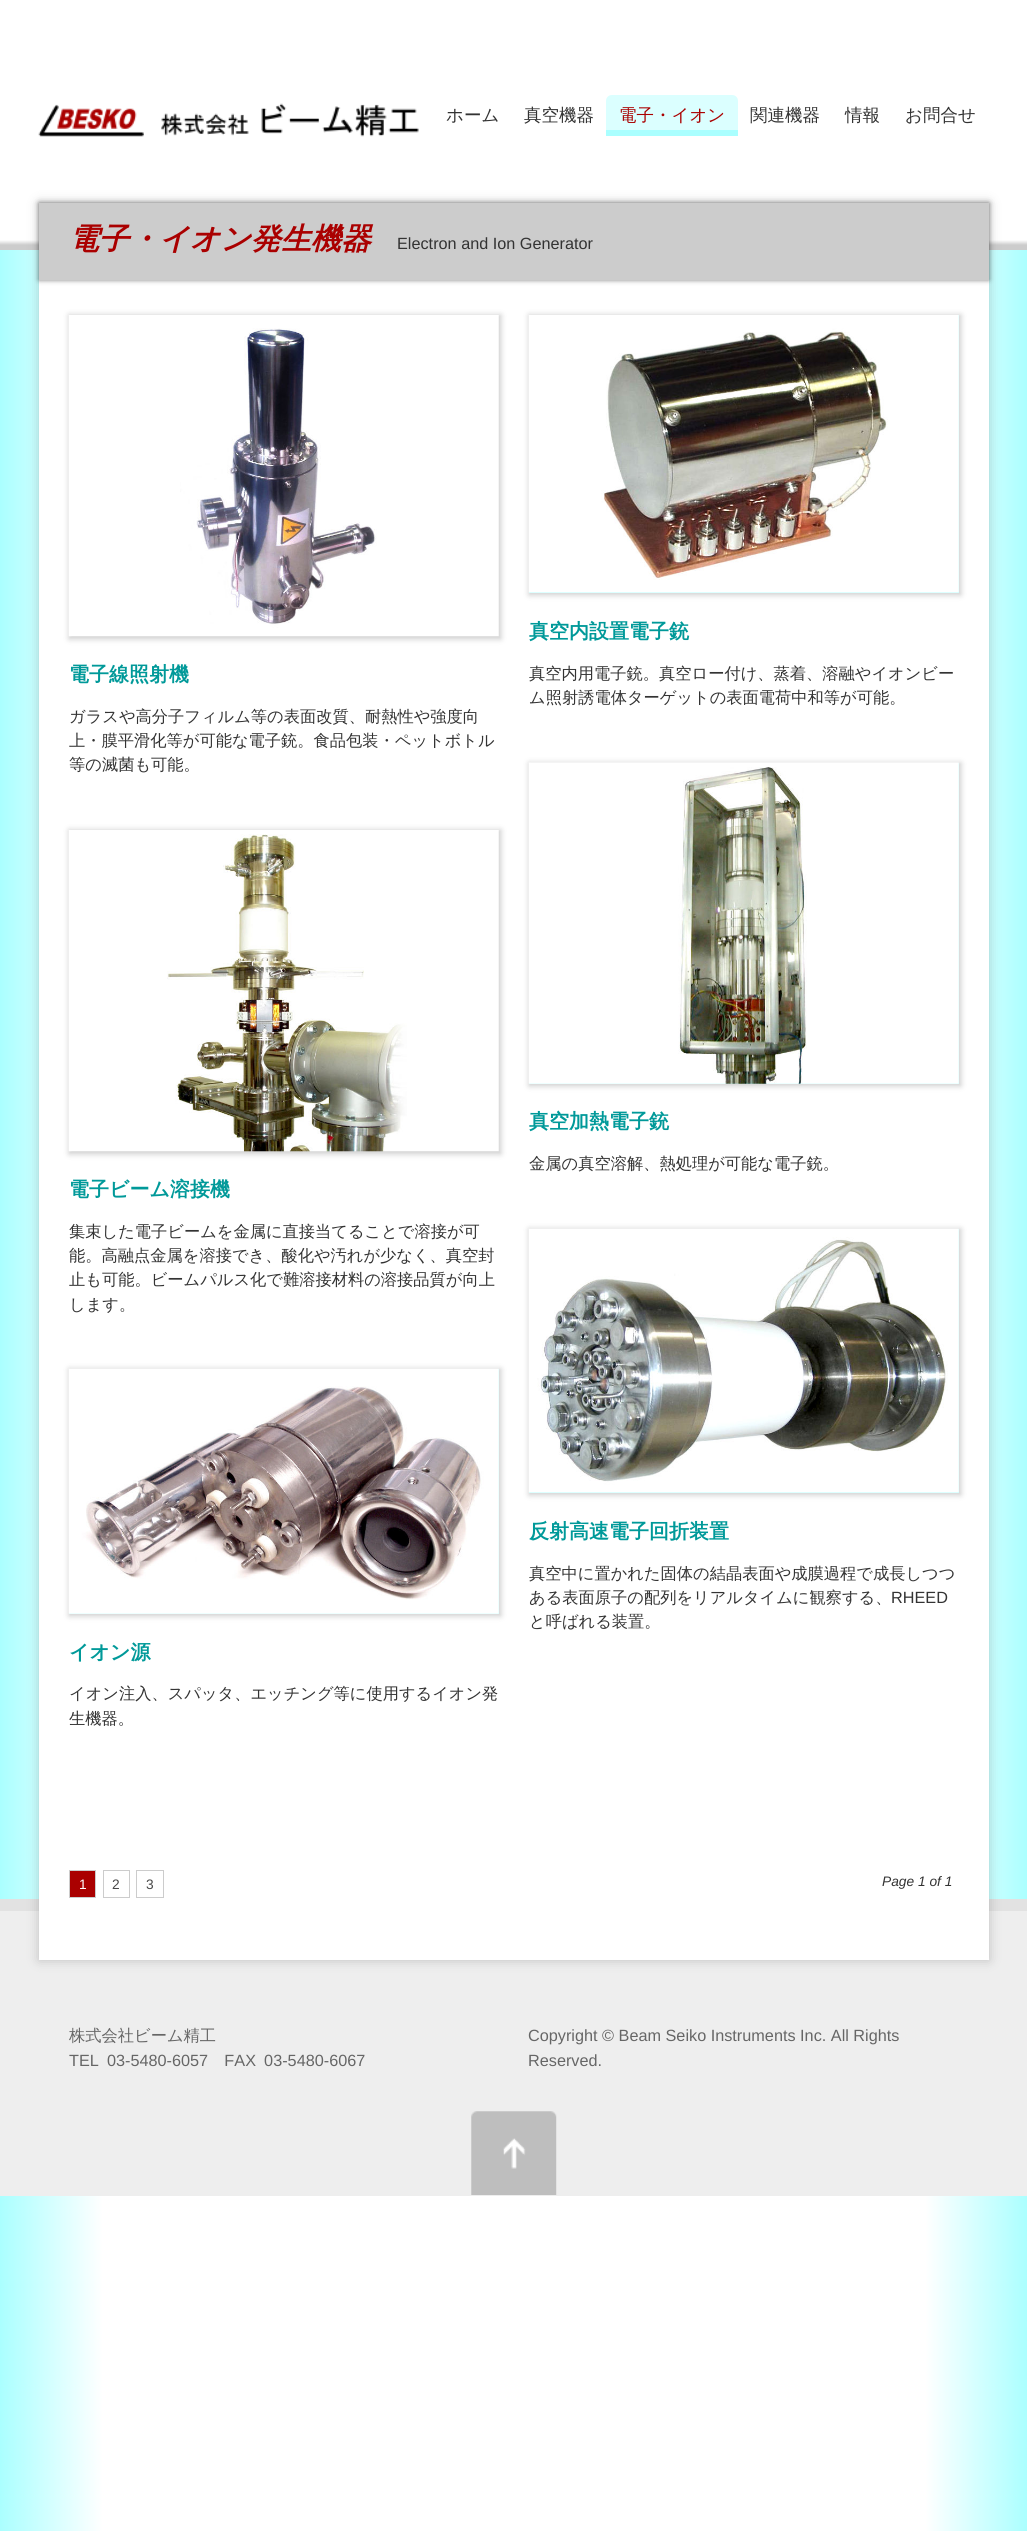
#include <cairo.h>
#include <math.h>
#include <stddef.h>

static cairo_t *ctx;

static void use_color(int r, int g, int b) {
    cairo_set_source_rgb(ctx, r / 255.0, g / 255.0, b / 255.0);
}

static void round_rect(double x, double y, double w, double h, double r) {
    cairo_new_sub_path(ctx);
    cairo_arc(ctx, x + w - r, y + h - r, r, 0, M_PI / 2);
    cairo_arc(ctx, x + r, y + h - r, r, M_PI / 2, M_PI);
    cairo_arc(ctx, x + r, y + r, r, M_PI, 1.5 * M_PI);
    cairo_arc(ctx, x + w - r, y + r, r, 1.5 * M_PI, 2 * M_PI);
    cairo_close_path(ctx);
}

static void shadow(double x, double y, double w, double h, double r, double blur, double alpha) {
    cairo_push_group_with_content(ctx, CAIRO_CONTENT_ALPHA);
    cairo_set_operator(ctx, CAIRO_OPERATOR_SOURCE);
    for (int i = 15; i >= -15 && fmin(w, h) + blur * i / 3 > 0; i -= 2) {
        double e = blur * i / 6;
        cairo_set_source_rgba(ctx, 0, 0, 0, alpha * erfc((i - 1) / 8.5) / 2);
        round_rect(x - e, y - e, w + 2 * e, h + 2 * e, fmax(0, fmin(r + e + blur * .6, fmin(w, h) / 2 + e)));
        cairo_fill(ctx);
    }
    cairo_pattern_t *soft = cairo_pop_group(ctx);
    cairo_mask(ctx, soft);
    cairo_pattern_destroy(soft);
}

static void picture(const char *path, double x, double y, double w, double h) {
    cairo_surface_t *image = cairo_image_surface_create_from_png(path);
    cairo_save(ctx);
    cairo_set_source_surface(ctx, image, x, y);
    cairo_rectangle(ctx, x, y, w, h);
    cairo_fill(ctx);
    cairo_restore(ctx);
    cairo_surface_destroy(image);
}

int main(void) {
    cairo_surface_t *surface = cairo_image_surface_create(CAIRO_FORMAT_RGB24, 1027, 2531);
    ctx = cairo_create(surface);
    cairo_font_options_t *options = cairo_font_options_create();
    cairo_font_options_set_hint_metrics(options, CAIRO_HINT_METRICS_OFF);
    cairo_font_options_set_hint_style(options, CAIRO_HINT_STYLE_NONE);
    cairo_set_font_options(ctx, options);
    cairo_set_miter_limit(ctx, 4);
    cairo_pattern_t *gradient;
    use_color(255, 255, 255);
    cairo_paint(ctx);
    gradient = cairo_pattern_create_linear(0, 1098, 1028, 1098);
    cairo_pattern_add_color_stop_rgba(gradient, 0, 0.667, 1, 1, 1);
    cairo_pattern_add_color_stop_rgba(gradient, 0.1, 1, 1, 1, 1);
    cairo_pattern_add_color_stop_rgba(gradient, 0.9, 1, 1, 1, 1);
    cairo_pattern_add_color_stop_rgba(gradient, 1, 0.667, 1, 1, 1);
    cairo_set_source(ctx, gradient);
    cairo_pattern_destroy(gradient);
    cairo_rectangle(ctx, 0, 250, 1027, 2281);
    cairo_fill(ctx);
    gradient = cairo_pattern_create_linear(514, 0, 514, 250);
    cairo_pattern_add_color_stop_rgba(gradient, 0.96, 1, 1, 1, 1);
    cairo_pattern_add_color_stop_rgba(gradient, 0.98, 0.8, 0.8, 0.8, 1);
    cairo_set_source(ctx, gradient);
    cairo_pattern_destroy(gradient);
    cairo_rectangle(ctx, 0, 240, 1027, 10);
    cairo_fill(ctx);
    picture("img1.png", 38, 103, 381, 34);
    cairo_select_font_face(ctx, "WenQuanYi Zen Hei Medium", CAIRO_FONT_SLANT_NORMAL, CAIRO_FONT_WEIGHT_NORMAL);
    cairo_set_font_size(ctx, 17.5);
    use_color(51, 51, 51);
    cairo_move_to(ctx, 446, 121);
    cairo_show_text(ctx, "ホーム");
    cairo_move_to(ctx, 524, 121);
    cairo_show_text(ctx, "真空機器");
    use_color(219, 255, 255);
    cairo_new_path(ctx);
    cairo_move_to(ctx, 612, 95);
    cairo_line_to(ctx, 732, 95);
    cairo_curve_to(ctx, 735.5, 95, 738, 97.5, 738, 101);
    cairo_line_to(ctx, 738, 136);
    cairo_line_to(ctx, 606, 136);
    cairo_line_to(ctx, 606, 101);
    cairo_curve_to(ctx, 606, 97.5, 608.5, 95, 612, 95);
    cairo_close_path(ctx);
    cairo_fill(ctx);
    use_color(170, 255, 255);
    cairo_rectangle(ctx, 606, 130, 132, 6);
    cairo_fill(ctx);
    use_color(170, 0, 0);
    cairo_move_to(ctx, 619, 121);
    cairo_show_text(ctx, "電子・イオン");
    use_color(51, 51, 51);
    cairo_move_to(ctx, 750, 121);
    cairo_show_text(ctx, "関連機器");
    cairo_move_to(ctx, 845, 121);
    cairo_show_text(ctx, "情報");
    cairo_move_to(ctx, 905, 121);
    cairo_show_text(ctx, "お問合せ");
    use_color(238, 238, 238);
    cairo_rectangle(ctx, 0, 1911, 1027, 285);
    cairo_fill(ctx);
    use_color(226, 226, 226);
    cairo_rectangle(ctx, 0, 1899, 1027, 12);
    cairo_fill(ctx);
    use_color(0, 0, 0);
    shadow(39, 203, 950, 1757, 0, 6, 0.2);
    use_color(255, 255, 255);
    cairo_rectangle(ctx, 39, 280, 950, 1680);
    cairo_fill(ctx);
    use_color(0, 0, 0);
    shadow(39, 203, 950, 77, 0, 2.5, 0.5);
    use_color(204, 204, 204);
    cairo_rectangle(ctx, 39, 203, 950, 77);
    cairo_fill(ctx);
    cairo_select_font_face(ctx, "WenQuanYi Zen Hei", CAIRO_FONT_SLANT_ITALIC, CAIRO_FONT_WEIGHT_BOLD);
    cairo_set_font_size(ctx, 30);
    use_color(170, 0, 0);
    cairo_move_to(ctx, 69, 249);
    cairo_show_text(ctx, "電子・イオン発生機器");
    cairo_select_font_face(ctx, "Liberation Sans", CAIRO_FONT_SLANT_NORMAL, CAIRO_FONT_WEIGHT_NORMAL);
    cairo_set_font_size(ctx, 16.25);
    use_color(51, 51, 51);
    cairo_move_to(ctx, 397, 249);
    cairo_show_text(ctx, "Electron and Ion Generator");
    use_color(0, 0, 0);
    shadow(69, 315, 432, 324, 0, 3, 0.2);
    picture("img2.png", 68, 315, 431, 322);
    cairo_select_font_face(ctx, "WenQuanYi Zen Hei", CAIRO_FONT_SLANT_NORMAL, CAIRO_FONT_WEIGHT_BOLD);
    cairo_set_font_size(ctx, 20);
    use_color(0, 153, 153);
    cairo_move_to(ctx, 69, 681);
    cairo_show_text(ctx, "電子線照射機");
    cairo_select_font_face(ctx, "WenQuanYi Zen Hei Medium", CAIRO_FONT_SLANT_NORMAL, CAIRO_FONT_WEIGHT_NORMAL);
    cairo_set_font_size(ctx, 16.25);
    use_color(51, 51, 51);
    cairo_move_to(ctx, 69, 722);
    cairo_show_text(ctx, "ガラスや高分子フィルム等の表面改質、耐熱性や強度向");
    cairo_move_to(ctx, 69, 746);
    cairo_show_text(ctx, "上・膜平滑化等が可能な電子銃。食品包装・ペットボトル");
    cairo_move_to(ctx, 69, 770);
    cairo_show_text(ctx, "等の滅菌も可能。");
    use_color(0, 0, 0);
    shadow(529, 315, 432, 280, 0, 3, 0.2);
    use_color(186, 255, 255);
    cairo_rectangle(ctx, 529, 315, 430, 278);
    cairo_fill(ctx);
    picture("img3.png", 528, 315, 431, 278);
    cairo_select_font_face(ctx, "WenQuanYi Zen Hei", CAIRO_FONT_SLANT_NORMAL, CAIRO_FONT_WEIGHT_BOLD);
    cairo_set_font_size(ctx, 20);
    use_color(0, 153, 153);
    cairo_move_to(ctx, 529, 638);
    cairo_show_text(ctx, "真空内設置電子銃");
    cairo_select_font_face(ctx, "WenQuanYi Zen Hei Medium", CAIRO_FONT_SLANT_NORMAL, CAIRO_FONT_WEIGHT_NORMAL);
    cairo_set_font_size(ctx, 16.25);
    use_color(51, 51, 51);
    cairo_move_to(ctx, 529, 679);
    cairo_show_text(ctx, "真空内用電子銃。真空ロー付け、蒸着、溶融やイオンビー");
    cairo_move_to(ctx, 529, 703);
    cairo_show_text(ctx, "ム照射誘電体ターゲットの表面電荷中和等が可能。");
    use_color(0, 0, 0);
    shadow(529, 763, 432, 323, 0, 3, 0.2);
    use_color(186, 255, 255);
    cairo_rectangle(ctx, 529, 763, 430, 321);
    cairo_fill(ctx);
    picture("img4.png", 528, 762, 431, 322);
    cairo_select_font_face(ctx, "WenQuanYi Zen Hei", CAIRO_FONT_SLANT_NORMAL, CAIRO_FONT_WEIGHT_BOLD);
    cairo_set_font_size(ctx, 20);
    use_color(0, 153, 153);
    cairo_move_to(ctx, 529, 1128);
    cairo_show_text(ctx, "真空加熱電子銃");
    cairo_select_font_face(ctx, "WenQuanYi Zen Hei Medium", CAIRO_FONT_SLANT_NORMAL, CAIRO_FONT_WEIGHT_NORMAL);
    cairo_set_font_size(ctx, 16.25);
    use_color(51, 51, 51);
    cairo_move_to(ctx, 529, 1169);
    cairo_show_text(ctx, "金属の真空溶解、熱処理が可能な電子銃。");
    use_color(0, 0, 0);
    shadow(69, 830, 432, 324, 0, 3, 0.2);
    picture("img5.png", 68, 830, 431, 322);
    cairo_select_font_face(ctx, "WenQuanYi Zen Hei", CAIRO_FONT_SLANT_NORMAL, CAIRO_FONT_WEIGHT_BOLD);
    cairo_set_font_size(ctx, 20);
    use_color(0, 153, 153);
    cairo_move_to(ctx, 69, 1196);
    cairo_show_text(ctx, "電子ビーム溶接機");
    cairo_select_font_face(ctx, "WenQuanYi Zen Hei Medium", CAIRO_FONT_SLANT_NORMAL, CAIRO_FONT_WEIGHT_NORMAL);
    cairo_set_font_size(ctx, 16.25);
    use_color(51, 51, 51);
    cairo_move_to(ctx, 69, 1237);
    cairo_show_text(ctx, "集束した電子ビームを金属に直接当てることで溶接が可");
    cairo_move_to(ctx, 69, 1261);
    cairo_show_text(ctx, "能。高融点金属を溶接でき、酸化や汚れが少なく、真空封");
    cairo_move_to(ctx, 69, 1285);
    cairo_show_text(ctx, "止も可能。ビームパルス化で難溶接材料の溶接品質が向上");
    cairo_move_to(ctx, 69, 1310);
    cairo_show_text(ctx, "します。");
    use_color(0, 0, 0);
    shadow(529, 1229, 432, 266, 0, 3, 0.2);
    use_color(186, 255, 255);
    cairo_rectangle(ctx, 529, 1229, 430, 264);
    cairo_fill(ctx);
    picture("img6.png", 528, 1228, 431, 265);
    cairo_select_font_face(ctx, "WenQuanYi Zen Hei", CAIRO_FONT_SLANT_NORMAL, CAIRO_FONT_WEIGHT_BOLD);
    cairo_set_font_size(ctx, 20);
    use_color(0, 153, 153);
    cairo_move_to(ctx, 529, 1538);
    cairo_show_text(ctx, "反射高速電子回折装置");
    cairo_select_font_face(ctx, "WenQuanYi Zen Hei Medium", CAIRO_FONT_SLANT_NORMAL, CAIRO_FONT_WEIGHT_NORMAL);
    cairo_set_font_size(ctx, 16.25);
    use_color(51, 51, 51);
    cairo_move_to(ctx, 529, 1579);
    cairo_show_text(ctx, "真空中に置かれた固体の結晶表面や成膜過程で成長しつつ");
    cairo_move_to(ctx, 529, 1603);
    cairo_show_text(ctx, "ある表面原子の配列をリアルタイムに観察する、");
    cairo_select_font_face(ctx, "Liberation Sans", CAIRO_FONT_SLANT_NORMAL, CAIRO_FONT_WEIGHT_NORMAL);
    cairo_move_to(ctx, 891, 1603);
    cairo_show_text(ctx, "RHEED");
    cairo_select_font_face(ctx, "WenQuanYi Zen Hei Medium", CAIRO_FONT_SLANT_NORMAL, CAIRO_FONT_WEIGHT_NORMAL);
    cairo_move_to(ctx, 529, 1627);
    cairo_show_text(ctx, "と呼ばれる装置。");
    use_color(0, 0, 0);
    shadow(69, 1369, 432, 247, 0, 3, 0.2);
    use_color(186, 255, 255);
    cairo_rectangle(ctx, 69, 1369, 430, 245);
    cairo_fill(ctx);
    picture("img7.png", 68, 1368, 431, 246);
    cairo_select_font_face(ctx, "WenQuanYi Zen Hei", CAIRO_FONT_SLANT_NORMAL, CAIRO_FONT_WEIGHT_BOLD);
    cairo_set_font_size(ctx, 20);
    use_color(0, 153, 153);
    cairo_move_to(ctx, 69, 1659);
    cairo_show_text(ctx, "イオン源");
    cairo_select_font_face(ctx, "WenQuanYi Zen Hei Medium", CAIRO_FONT_SLANT_NORMAL, CAIRO_FONT_WEIGHT_NORMAL);
    cairo_set_font_size(ctx, 16.25);
    use_color(51, 51, 51);
    cairo_move_to(ctx, 69, 1699);
    cairo_show_text(ctx, "イオン注入、スパッタ、エッチング等に使用するイオン発");
    cairo_move_to(ctx, 69, 1724);
    cairo_show_text(ctx, "生機器。");
    use_color(170, 0, 0);
    cairo_rectangle(ctx, 69.5, 1870.5, 26, 27);
    cairo_fill_preserve(ctx);
    use_color(204, 204, 204);
    cairo_set_line_width(ctx, 1);
    cairo_stroke(ctx);
    cairo_select_font_face(ctx, "Liberation Sans", CAIRO_FONT_SLANT_NORMAL, CAIRO_FONT_WEIGHT_NORMAL);
    cairo_set_font_size(ctx, 13.75);
    use_color(255, 255, 255);
    cairo_move_to(ctx, 79, 1889);
    cairo_show_text(ctx, "1");
    cairo_rectangle(ctx, 103.5, 1870.5, 26, 27);
    use_color(204, 204, 204);
    cairo_stroke(ctx);
    use_color(72, 72, 72);
    cairo_move_to(ctx, 112, 1889);
    cairo_show_text(ctx, "2");
    cairo_rectangle(ctx, 136.5, 1870.5, 27, 27);
    use_color(204, 204, 204);
    cairo_stroke(ctx);
    use_color(72, 72, 72);
    cairo_move_to(ctx, 146, 1889);
    cairo_show_text(ctx, "3");
    cairo_select_font_face(ctx, "Liberation Sans", CAIRO_FONT_SLANT_ITALIC, CAIRO_FONT_WEIGHT_NORMAL);
    use_color(51, 51, 51);
    cairo_move_to(ctx, 882, 1886);
    cairo_show_text(ctx, "Page 1 of 1");
    cairo_select_font_face(ctx, "WenQuanYi Zen Hei Medium", CAIRO_FONT_SLANT_NORMAL, CAIRO_FONT_WEIGHT_NORMAL);
    cairo_set_font_size(ctx, 16.25);
    use_color(102, 102, 102);
    cairo_move_to(ctx, 69, 2041);
    cairo_show_text(ctx, "株式会社ビーム精工");
    cairo_select_font_face(ctx, "Liberation Sans", CAIRO_FONT_SLANT_NORMAL, CAIRO_FONT_WEIGHT_NORMAL);
    cairo_move_to(ctx, 69, 2066);
    cairo_show_text(ctx, "TEL 03-5480-6057 FAX 03-5480-6067");
    cairo_move_to(ctx, 528, 2041);
    cairo_show_text(ctx, "Copyright © Beam Seiko Instruments Inc. All Rights");
    cairo_move_to(ctx, 528, 2066);
    cairo_show_text(ctx, "Reserved.");
    picture("img8.png", 471, 2111, 86, 84);
    cairo_surface_write_to_png(surface, "result.png");
    cairo_font_options_destroy(options);
    cairo_destroy(ctx);
    cairo_surface_destroy(surface);
    return 0;
}
